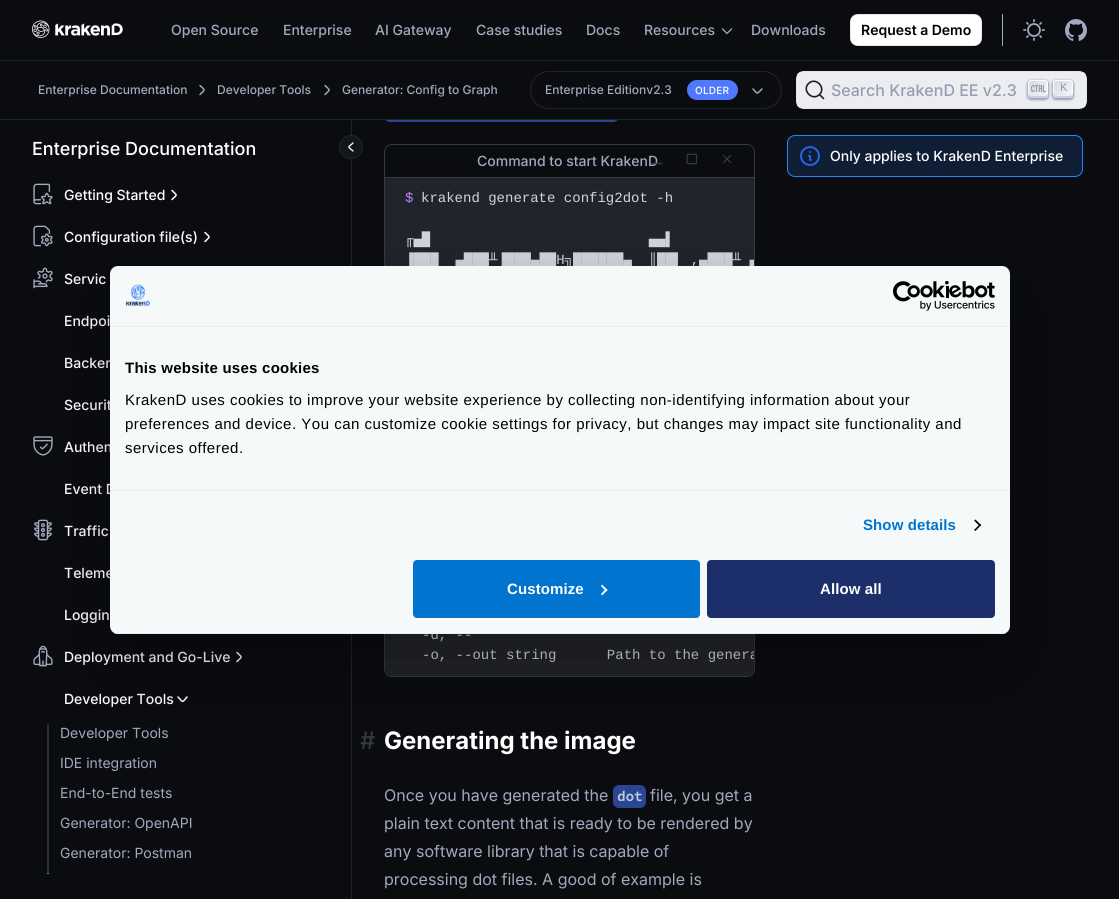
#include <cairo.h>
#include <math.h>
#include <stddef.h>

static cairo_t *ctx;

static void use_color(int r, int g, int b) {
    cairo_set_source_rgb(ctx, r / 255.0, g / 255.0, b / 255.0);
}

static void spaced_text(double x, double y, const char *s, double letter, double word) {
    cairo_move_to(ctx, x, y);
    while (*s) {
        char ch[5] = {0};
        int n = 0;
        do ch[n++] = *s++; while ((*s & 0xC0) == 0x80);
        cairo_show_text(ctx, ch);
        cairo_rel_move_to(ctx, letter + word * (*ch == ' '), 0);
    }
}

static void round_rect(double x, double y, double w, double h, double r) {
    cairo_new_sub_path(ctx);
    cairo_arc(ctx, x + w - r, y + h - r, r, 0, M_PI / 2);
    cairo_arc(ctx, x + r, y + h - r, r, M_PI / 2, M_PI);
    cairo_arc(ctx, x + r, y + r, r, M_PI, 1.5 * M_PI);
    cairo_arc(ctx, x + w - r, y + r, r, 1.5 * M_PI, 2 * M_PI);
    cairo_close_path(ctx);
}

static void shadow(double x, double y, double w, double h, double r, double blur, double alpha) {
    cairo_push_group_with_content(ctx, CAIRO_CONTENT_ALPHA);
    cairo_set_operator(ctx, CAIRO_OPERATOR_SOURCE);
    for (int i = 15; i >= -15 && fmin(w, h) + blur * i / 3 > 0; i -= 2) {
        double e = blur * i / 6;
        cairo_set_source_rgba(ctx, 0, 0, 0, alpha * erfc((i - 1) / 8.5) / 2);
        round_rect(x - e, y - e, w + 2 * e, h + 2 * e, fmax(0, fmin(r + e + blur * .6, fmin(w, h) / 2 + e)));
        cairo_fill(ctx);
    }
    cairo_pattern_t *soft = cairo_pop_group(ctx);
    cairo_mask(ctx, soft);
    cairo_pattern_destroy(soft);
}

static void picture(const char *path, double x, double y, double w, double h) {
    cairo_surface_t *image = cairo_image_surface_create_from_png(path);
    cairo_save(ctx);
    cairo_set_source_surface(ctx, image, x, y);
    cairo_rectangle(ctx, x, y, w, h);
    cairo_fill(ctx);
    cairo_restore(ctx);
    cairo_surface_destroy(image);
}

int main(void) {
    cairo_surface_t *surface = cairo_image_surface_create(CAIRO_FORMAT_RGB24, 1119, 899);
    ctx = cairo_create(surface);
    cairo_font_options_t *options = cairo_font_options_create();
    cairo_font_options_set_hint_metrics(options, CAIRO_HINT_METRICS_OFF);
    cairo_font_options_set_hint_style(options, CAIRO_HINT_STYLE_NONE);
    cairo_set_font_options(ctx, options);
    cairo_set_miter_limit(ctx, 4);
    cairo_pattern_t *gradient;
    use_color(11, 12, 16);
    cairo_paint(ctx);
    picture("img1.png", 32, 20, 91, 18);
    cairo_select_font_face(ctx, "Inter Medium", CAIRO_FONT_SLANT_NORMAL, CAIRO_FONT_WEIGHT_NORMAL);
    cairo_set_font_size(ctx, 14);
    use_color(162, 169, 190);
    cairo_move_to(ctx, 171, 35);
    cairo_show_text(ctx, "Open Source");
    cairo_move_to(ctx, 283, 35);
    cairo_show_text(ctx, "Enterprise");
    cairo_move_to(ctx, 375, 35);
    cairo_show_text(ctx, "AI Gateway");
    cairo_move_to(ctx, 476, 35);
    cairo_show_text(ctx, "Case studies");
    cairo_move_to(ctx, 586, 35);
    cairo_show_text(ctx, "Docs");
    cairo_move_to(ctx, 644, 35);
    cairo_show_text(ctx, "Resources");
    cairo_new_path(ctx);
    cairo_move_to(ctx, 731.5, 29);
    cairo_line_to(ctx, 727, 33.5);
    cairo_line_to(ctx, 722.5, 29);
    cairo_set_line_width(ctx, 1.3);
    cairo_set_line_cap(ctx, CAIRO_LINE_CAP_ROUND);
    cairo_set_line_join(ctx, CAIRO_LINE_JOIN_ROUND);
    cairo_stroke(ctx);
    cairo_move_to(ctx, 751, 35);
    cairo_show_text(ctx, "Downloads");
    use_color(255, 255, 255);
    round_rect(850, 14, 132, 32, 8);
    cairo_fill(ctx);
    round_rect(850.5, 14.5, 131, 31, 7.5);
    cairo_set_source_rgba(ctx, 0, 0, 0, 0.1);
    cairo_set_line_width(ctx, 1);
    cairo_set_line_cap(ctx, CAIRO_LINE_CAP_BUTT);
    cairo_set_line_join(ctx, CAIRO_LINE_JOIN_MITER);
    cairo_stroke(ctx);
    cairo_select_font_face(ctx, "Inter SemiBold", CAIRO_FONT_SLANT_NORMAL, CAIRO_FONT_WEIGHT_NORMAL);
    use_color(0, 0, 0);
    cairo_move_to(ctx, 861, 35);
    cairo_show_text(ctx, "Request a Demo");
    use_color(162, 169, 190);
    cairo_rectangle(ctx, 1002, 14, 1, 32);
    cairo_fill(ctx);
    picture("img2.png", 1023, 19, 22, 22);
    picture("img3.png", 1065, 19, 22, 22);
    use_color(41, 69, 148);
    round_rect(384, 100, 235, 22, 6);
    cairo_fill(ctx);
    use_color(11, 12, 16);
    cairo_rectangle(ctx, 384, 100, 235, 19);
    cairo_fill(ctx);
    use_color(34, 36, 43);
    cairo_rectangle(ctx, 0, 60, 1119, 1);
    cairo_fill(ctx);
    cairo_rectangle(ctx, 0, 119, 1119, 1);
    cairo_fill(ctx);
    cairo_select_font_face(ctx, "Inter Medium", CAIRO_FONT_SLANT_NORMAL, CAIRO_FONT_WEIGHT_NORMAL);
    cairo_set_font_size(ctx, 12);
    use_color(162, 169, 190);
    cairo_move_to(ctx, 38, 94);
    cairo_show_text(ctx, "Enterprise Documentation");
    cairo_new_path(ctx);
    cairo_move_to(ctx, 200, 85.5);
    cairo_curve_to(ctx, 205.5, 91, 205.5, 89, 200, 94.5);
    cairo_set_line_width(ctx, 1.5);
    cairo_set_line_cap(ctx, CAIRO_LINE_CAP_ROUND);
    cairo_set_line_join(ctx, CAIRO_LINE_JOIN_ROUND);
    cairo_stroke(ctx);
    cairo_move_to(ctx, 217, 94);
    cairo_show_text(ctx, "Developer Tools");
    cairo_new_path(ctx);
    cairo_move_to(ctx, 325, 85.5);
    cairo_curve_to(ctx, 330.5, 91, 330.5, 89, 325, 94.5);
    cairo_stroke(ctx);
    cairo_move_to(ctx, 342, 94);
    cairo_show_text(ctx, "Generator: Config to Graph");
    round_rect(530.5, 71.5, 251, 37, 18.5);
    use_color(34, 36, 43);
    cairo_set_line_width(ctx, 1);
    cairo_set_line_cap(ctx, CAIRO_LINE_CAP_BUTT);
    cairo_set_line_join(ctx, CAIRO_LINE_JOIN_MITER);
    cairo_stroke(ctx);
    use_color(162, 169, 190);
    cairo_move_to(ctx, 545, 94);
    cairo_show_text(ctx, "Enterprise Editionv2.3");
    use_color(79, 121, 253);
    round_rect(687, 80, 51, 20, 10);
    cairo_fill(ctx);
    cairo_set_font_size(ctx, 10);
    use_color(255, 255, 255);
    spaced_text(695, 94, "OLDER", 0.25, 0);
    cairo_new_path(ctx);
    cairo_move_to(ctx, 762, 89);
    cairo_curve_to(ctx, 756, 94.5, 758.5, 94.5, 753, 89);
    use_color(162, 169, 190);
    cairo_set_line_width(ctx, 1.5);
    cairo_set_line_cap(ctx, CAIRO_LINE_CAP_ROUND);
    cairo_set_line_join(ctx, CAIRO_LINE_JOIN_ROUND);
    cairo_stroke(ctx);
    round_rect(796.5, 71.5, 290, 37, 7.5);
    use_color(229, 231, 235);
    cairo_set_line_width(ctx, 1);
    cairo_set_line_cap(ctx, CAIRO_LINE_CAP_BUTT);
    cairo_set_line_join(ctx, CAIRO_LINE_JOIN_MITER);
    cairo_stroke(ctx);
    use_color(235, 237, 240);
    round_rect(797, 72, 289, 36, 4);
    cairo_fill(ctx);
    cairo_new_path(ctx);
    cairo_move_to(ctx, 819.5, 94.5);
    cairo_line_to(ctx, 823.5, 98.5);
    cairo_line_to(ctx, 819.5, 94.5);
    cairo_curve_to(ctx, 812.5, 101.5, 801.5, 90.5, 808.5, 83.5);
    cairo_curve_to(ctx, 815.5, 76.5, 826.5, 87.5, 819.5, 94.5);
    cairo_close_path(ctx);
    use_color(28, 30, 33);
    cairo_set_line_width(ctx, 1.6);
    cairo_set_line_cap(ctx, CAIRO_LINE_CAP_ROUND);
    cairo_set_line_join(ctx, CAIRO_LINE_JOIN_ROUND);
    cairo_stroke(ctx);
    cairo_set_font_size(ctx, 16);
    use_color(150, 159, 175);
    cairo_move_to(ctx, 831, 96);
    cairo_show_text(ctx, "Search KrakenD EE v2.3");
    use_color(30, 35, 90);
    shadow(1027, 80, 22, 20, 4, 1, 0.4);
    gradient = cairo_pattern_create_linear(1029, 80, 1048, 99);
    cairo_pattern_add_color_stop_rgba(gradient, 0, 0.835, 0.859, 0.894, 1);
    cairo_pattern_add_color_stop_rgba(gradient, 1, 0.973, 0.973, 0.973, 1);
    cairo_set_source(ctx, gradient);
    cairo_pattern_destroy(gradient);
    round_rect(1028.5, 80.5, 19, 17, 2.5);
    cairo_fill_preserve(ctx);
    use_color(255, 255, 255);
    cairo_set_line_width(ctx, 1);
    cairo_set_line_cap(ctx, CAIRO_LINE_CAP_BUTT);
    cairo_set_line_join(ctx, CAIRO_LINE_JOIN_MITER);
    cairo_stroke(ctx);
    use_color(205, 205, 230);
    cairo_new_path(ctx);
    cairo_move_to(ctx, 1048, 92.5);
    cairo_curve_to(ctx, 1048, 95, 1046.5, 96, 1043, 96);
    cairo_line_to(ctx, 1031, 96);
    cairo_curve_to(ctx, 1029, 96, 1028, 94.5, 1028, 92.5);
    cairo_line_to(ctx, 1028, 95);
    cairo_curve_to(ctx, 1028, 96.5, 1029.5, 98, 1031, 98);
    cairo_line_to(ctx, 1045, 98);
    cairo_curve_to(ctx, 1046.5, 98, 1048, 96.5, 1048, 95);
    cairo_close_path(ctx);
    cairo_fill(ctx);
    picture("img4.png", 1031, 84, 15, 9);
    use_color(30, 35, 90);
    shadow(1052, 80, 22, 20, 4, 1, 0.4);
    gradient = cairo_pattern_create_linear(1054, 80, 1073, 99);
    cairo_pattern_add_color_stop_rgba(gradient, 0, 0.835, 0.859, 0.894, 1);
    cairo_pattern_add_color_stop_rgba(gradient, 1, 0.973, 0.973, 0.973, 1);
    cairo_set_source(ctx, gradient);
    cairo_pattern_destroy(gradient);
    round_rect(1053.5, 80.5, 19, 17, 2.5);
    cairo_fill_preserve(ctx);
    use_color(255, 255, 255);
    cairo_stroke(ctx);
    use_color(205, 205, 230);
    cairo_new_path(ctx);
    cairo_move_to(ctx, 1073, 92.5);
    cairo_curve_to(ctx, 1073, 95, 1071.5, 96, 1068, 96);
    cairo_line_to(ctx, 1056, 96);
    cairo_curve_to(ctx, 1054, 96, 1053, 94.5, 1053, 92.5);
    cairo_line_to(ctx, 1053, 95);
    cairo_curve_to(ctx, 1053, 96.5, 1054.5, 98, 1056, 98);
    cairo_line_to(ctx, 1070, 98);
    cairo_curve_to(ctx, 1071.5, 98, 1073, 96.5, 1073, 95);
    cairo_close_path(ctx);
    cairo_fill(ctx);
    cairo_select_font_face(ctx, "Liberation Mono", CAIRO_FONT_SLANT_NORMAL, CAIRO_FONT_WEIGHT_NORMAL);
    cairo_set_font_size(ctx, 12);
    use_color(150, 159, 175);
    cairo_move_to(ctx, 1060, 91);
    cairo_show_text(ctx, "K");
    use_color(34, 36, 43);
    cairo_rectangle(ctx, 351, 120, 1, 779);
    cairo_fill(ctx);
    cairo_select_font_face(ctx, "Inter Medium", CAIRO_FONT_SLANT_NORMAL, CAIRO_FONT_WEIGHT_NORMAL);
    cairo_set_font_size(ctx, 18);
    use_color(255, 255, 255);
    cairo_move_to(ctx, 32, 155);
    cairo_show_text(ctx, "Enterprise Documentation");
    picture("img5.png", 33, 183, 20, 22);
    cairo_set_font_size(ctx, 14);
    cairo_move_to(ctx, 64, 200);
    cairo_show_text(ctx, "Getting Started");
    cairo_new_path(ctx);
    cairo_move_to(ctx, 172, 190.5);
    cairo_curve_to(ctx, 177.5, 196, 177.5, 194, 172, 199.5);
    cairo_set_line_width(ctx, 1.5);
    cairo_set_line_cap(ctx, CAIRO_LINE_CAP_ROUND);
    cairo_set_line_join(ctx, CAIRO_LINE_JOIN_ROUND);
    cairo_stroke(ctx);
    picture("img6.png", 33, 225, 20, 22);
    cairo_move_to(ctx, 64, 242);
    cairo_show_text(ctx, "Configuration file(s)");
    cairo_new_path(ctx);
    cairo_move_to(ctx, 205, 232.5);
    cairo_curve_to(ctx, 210.5, 238, 210.5, 236, 205, 241.5);
    cairo_stroke(ctx);
    picture("img7.png", 33, 267, 20, 22);
    cairo_move_to(ctx, 64, 284);
    cairo_show_text(ctx, "Servic");
    cairo_move_to(ctx, 64, 326);
    cairo_show_text(ctx, "Endpoi");
    cairo_move_to(ctx, 64, 368);
    cairo_show_text(ctx, "Backen");
    cairo_move_to(ctx, 64, 410);
    cairo_show_text(ctx, "Securit");
    picture("img8.png", 33, 436, 20, 20);
    cairo_move_to(ctx, 64, 452);
    cairo_show_text(ctx, "Authen");
    cairo_move_to(ctx, 64, 494);
    cairo_show_text(ctx, "Event D");
    picture("img9.png", 34, 519, 18, 22);
    cairo_move_to(ctx, 64, 536);
    cairo_show_text(ctx, "Traffic");
    cairo_move_to(ctx, 64, 578);
    cairo_show_text(ctx, "Teleme");
    cairo_move_to(ctx, 64, 620);
    cairo_show_text(ctx, "Loggin");
    picture("img10.png", 33, 645, 20, 22);
    cairo_move_to(ctx, 64, 662);
    cairo_show_text(ctx, "Deployment and Go-Live");
    cairo_new_path(ctx);
    cairo_move_to(ctx, 237, 652.5);
    cairo_curve_to(ctx, 242.5, 658, 242.5, 656, 237, 661.5);
    cairo_stroke(ctx);
    cairo_move_to(ctx, 64, 704);
    cairo_show_text(ctx, "Developer Tools");
    cairo_new_path(ctx);
    cairo_move_to(ctx, 187, 697);
    cairo_curve_to(ctx, 181.5, 703, 184, 703, 178, 697);
    cairo_stroke(ctx);
    use_color(44, 47, 56);
    cairo_rectangle(ctx, 47, 724, 2, 150);
    cairo_fill(ctx);
    cairo_select_font_face(ctx, "Inter", CAIRO_FONT_SLANT_NORMAL, CAIRO_FONT_WEIGHT_NORMAL);
    use_color(162, 169, 190);
    cairo_move_to(ctx, 60, 738);
    cairo_show_text(ctx, "Developer Tools");
    cairo_move_to(ctx, 60, 768);
    cairo_show_text(ctx, "IDE integration");
    cairo_move_to(ctx, 60, 798);
    cairo_show_text(ctx, "End-to-End tests");
    cairo_move_to(ctx, 60, 828);
    cairo_show_text(ctx, "Generator: OpenAPI");
    cairo_move_to(ctx, 60, 858);
    cairo_show_text(ctx, "Generator: Postman");
    use_color(37, 133, 255);
    cairo_rectangle(ctx, 47, 873, 2, 1);
    cairo_fill(ctx);
    use_color(19, 21, 29);
    cairo_arc(ctx, 351, 147, 11.5, 0, 2 * M_PI);
    cairo_fill_preserve(ctx);
    use_color(34, 36, 43);
    cairo_set_line_width(ctx, 1);
    cairo_set_line_cap(ctx, CAIRO_LINE_CAP_BUTT);
    cairo_set_line_join(ctx, CAIRO_LINE_JOIN_MITER);
    cairo_stroke(ctx);
    cairo_new_path(ctx);
    cairo_move_to(ctx, 353, 151);
    cairo_curve_to(ctx, 347.5, 146, 347.5, 148, 353, 143);
    use_color(255, 255, 255);
    cairo_set_line_width(ctx, 1.3);
    cairo_set_line_cap(ctx, CAIRO_LINE_CAP_ROUND);
    cairo_set_line_join(ctx, CAIRO_LINE_JOIN_ROUND);
    cairo_stroke(ctx);
    round_rect(384.5, 144.5, 370, 532, 7.5);
    use_color(54, 57, 68);
    cairo_set_line_width(ctx, 1);
    cairo_set_line_cap(ctx, CAIRO_LINE_CAP_BUTT);
    cairo_set_line_join(ctx, CAIRO_LINE_JOIN_MITER);
    cairo_stroke(ctx);
    use_color(11, 12, 16);
    cairo_new_path(ctx);
    cairo_move_to(ctx, 392, 145);
    cairo_line_to(ctx, 747, 145);
    cairo_curve_to(ctx, 751, 145, 754, 148, 754, 152);
    cairo_line_to(ctx, 754, 177);
    cairo_line_to(ctx, 385, 177);
    cairo_line_to(ctx, 385, 152);
    cairo_curve_to(ctx, 385, 148, 388, 145, 392, 145);
    cairo_close_path(ctx);
    cairo_fill(ctx);
    cairo_select_font_face(ctx, "Inter Medium", CAIRO_FONT_SLANT_NORMAL, CAIRO_FONT_WEIGHT_NORMAL);
    use_color(162, 169, 190);
    cairo_move_to(ctx, 477, 166);
    cairo_show_text(ctx, "Command to start KrakenD");
    cairo_new_path(ctx);
    cairo_move_to(ctx, 662, 163.5);
    cairo_line_to(ctx, 652, 163.5);
    use_color(54, 57, 68);
    cairo_set_line_width(ctx, 1.2);
    cairo_set_line_cap(ctx, CAIRO_LINE_CAP_ROUND);
    cairo_set_line_join(ctx, CAIRO_LINE_JOIN_ROUND);
    cairo_stroke(ctx);
    picture("img11.png", 686, 153, 12, 12);
    cairo_new_path(ctx);
    cairo_move_to(ctx, 723.5, 162.5);
    cairo_line_to(ctx, 730.5, 155.5);
    cairo_move_to(ctx, 730.5, 162.5);
    cairo_line_to(ctx, 723.5, 155.5);
    cairo_stroke(ctx);
    use_color(34, 36, 43);
    cairo_new_path(ctx);
    cairo_move_to(ctx, 385, 178);
    cairo_line_to(ctx, 754, 178);
    cairo_line_to(ctx, 754, 669);
    cairo_curve_to(ctx, 754, 673, 751, 676, 747, 676);
    cairo_line_to(ctx, 392, 676);
    cairo_curve_to(ctx, 388, 676, 385, 673, 385, 669);
    cairo_close_path(ctx);
    cairo_fill(ctx);
    use_color(54, 57, 68);
    cairo_rectangle(ctx, 385, 177, 369, 1);
    cairo_fill(ctx);
    cairo_select_font_face(ctx, "Liberation Mono", CAIRO_FONT_SLANT_NORMAL, CAIRO_FONT_WEIGHT_NORMAL);
    use_color(192, 132, 252);
    cairo_move_to(ctx, 405, 202);
    cairo_show_text(ctx, "$");
    use_color(209, 213, 219);
    cairo_move_to(ctx, 421, 202);
    cairo_show_text(ctx, "krakend generate config2dot -h");
    cairo_move_to(ctx, 405, 243);
    cairo_show_text(ctx, "╓▄█                          ▄▄▌");
    cairo_save(ctx);
    round_rect(385, 178, 369, 498, 6);
    cairo_clip(ctx);
    cairo_move_to(ctx, 405, 264);
    cairo_show_text(ctx, "▐███  ▄███╨▐███▄██H╗██████▄  ║██▌ ,▄███╨ ▄");
    cairo_restore(ctx);
    cairo_move_to(ctx, 422, 639);
    cairo_show_text(ctx, "-d, --");
    cairo_save(ctx);
    round_rect(385, 178, 369, 498, 6);
    cairo_clip(ctx);
    cairo_move_to(ctx, 422, 659);
    cairo_show_text(ctx, "-o, --out string      Path to the genera");
    cairo_restore(ctx);
    cairo_select_font_face(ctx, "Inter Medium", CAIRO_FONT_SLANT_NORMAL, CAIRO_FONT_WEIGHT_NORMAL);
    cairo_set_font_size(ctx, 24);
    use_color(54, 57, 68);
    cairo_move_to(ctx, 360, 749);
    cairo_show_text(ctx, "#");
    cairo_select_font_face(ctx, "Inter", CAIRO_FONT_SLANT_NORMAL, CAIRO_FONT_WEIGHT_BOLD);
    use_color(255, 255, 255);
    cairo_move_to(ctx, 384, 749);
    cairo_show_text(ctx, "Generating the image");
    cairo_select_font_face(ctx, "Inter", CAIRO_FONT_SLANT_NORMAL, CAIRO_FONT_WEIGHT_NORMAL);
    cairo_set_font_size(ctx, 16);
    use_color(162, 169, 190);
    cairo_move_to(ctx, 384, 801);
    cairo_show_text(ctx, "Once you have generated the");
    use_color(41, 69, 148);
    round_rect(613, 785, 33, 23, 6);
    cairo_fill(ctx);
    cairo_select_font_face(ctx, "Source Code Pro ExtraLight", CAIRO_FONT_SLANT_NORMAL, CAIRO_FONT_WEIGHT_BOLD);
    cairo_set_font_size(ctx, 14);
    use_color(188, 204, 220);
    cairo_move_to(ctx, 617, 801);
    cairo_show_text(ctx, "dot");
    cairo_select_font_face(ctx, "Inter", CAIRO_FONT_SLANT_NORMAL, CAIRO_FONT_WEIGHT_NORMAL);
    cairo_set_font_size(ctx, 16);
    use_color(162, 169, 190);
    cairo_move_to(ctx, 650, 801);
    cairo_show_text(ctx, "file, you get a");
    cairo_move_to(ctx, 384, 829);
    cairo_show_text(ctx, "plain text content that is ready to be rendered by");
    cairo_move_to(ctx, 384, 857);
    cairo_show_text(ctx, "any software library that is capable of");
    cairo_move_to(ctx, 384, 885);
    cairo_show_text(ctx, "processing dot files. A good of example is");
    use_color(15, 30, 52);
    round_rect(787.5, 135.5, 295, 41, 7.5);
    cairo_fill_preserve(ctx);
    use_color(37, 133, 255);
    cairo_set_line_width(ctx, 1);
    cairo_set_line_cap(ctx, CAIRO_LINE_CAP_BUTT);
    cairo_set_line_join(ctx, CAIRO_LINE_JOIN_MITER);
    cairo_stroke(ctx);
    picture("img12.png", 800, 146, 20, 20);
    cairo_select_font_face(ctx, "Inter Medium", CAIRO_FONT_SLANT_NORMAL, CAIRO_FONT_WEIGHT_NORMAL);
    cairo_set_font_size(ctx, 14);
    use_color(255, 255, 255);
    cairo_move_to(ctx, 830, 161);
    cairo_show_text(ctx, "Only applies to KrakenD Enterprise");
    use_color(0, 0, 0);
    shadow(110, 298, 900, 368, 8, 34, 0.3);
    use_color(245, 249, 250);
    round_rect(110, 266, 900, 368, 8);
    cairo_fill(ctx);
    use_color(238, 238, 238);
    cairo_rectangle(ctx, 110, 326, 900, 1);
    cairo_fill(ctx);
    picture("img13.png", 125, 284, 26, 23);
    picture("img14.png", 893, 281, 102, 30);
    cairo_rectangle(ctx, 110, 490, 900, 1);
    cairo_fill(ctx);
    cairo_select_font_face(ctx, "Liberation Sans", CAIRO_FONT_SLANT_NORMAL, CAIRO_FONT_WEIGHT_BOLD);
    cairo_set_font_size(ctx, 15);
    use_color(0, 0, 0);
    spaced_text(125, 373, "This website uses cookies", 0.25, 0);
    cairo_select_font_face(ctx, "Liberation Sans", CAIRO_FONT_SLANT_NORMAL, CAIRO_FONT_WEIGHT_NORMAL);
    spaced_text(125, 405, "KrakenD uses cookies to improve your website experience by collecting non-identifying information about your", 0.5, 0);
    spaced_text(125, 429, "preferences and device. You can customize cookie settings for privacy, but changes may impact site functionality and", 0.5, 0);
    spaced_text(125, 453, "services offered.", 0.5, 0);
    cairo_select_font_face(ctx, "Liberation Sans", CAIRO_FONT_SLANT_NORMAL, CAIRO_FONT_WEIGHT_BOLD);
    use_color(0, 116, 206);
    spaced_text(863, 530, "Show details", 0.1, 0);
    use_color(0, 0, 0);
    cairo_new_path(ctx);
    cairo_move_to(ctx, 975.5, 519.5);
    cairo_line_to(ctx, 981, 525);
    cairo_line_to(ctx, 980, 526.5);
    cairo_line_to(ctx, 974, 520.5);
    cairo_close_path(ctx);
    cairo_fill(ctx);
    cairo_new_path(ctx);
    cairo_move_to(ctx, 980, 524);
    cairo_line_to(ctx, 981, 525);
    cairo_line_to(ctx, 975.5, 531);
    cairo_line_to(ctx, 974, 530);
    cairo_close_path(ctx);
    cairo_fill(ctx);
    cairo_save(ctx);
    round_rect(110, 266, 900, 368, 8);
    cairo_clip(ctx);
    use_color(238, 238, 238);
    cairo_rectangle(ctx, 110, 633, 900, 1);
    cairo_fill(ctx);
    cairo_restore(ctx);
    use_color(0, 116, 206);
    round_rect(414, 561, 285, 56, 3);
    cairo_fill_preserve(ctx);
    cairo_set_line_width(ctx, 2);
    cairo_stroke(ctx);
    use_color(255, 255, 255);
    spaced_text(507, 594, "Customize", 0.1, 0);
    cairo_new_path(ctx);
    cairo_move_to(ctx, 602, 584.5);
    cairo_line_to(ctx, 607.5, 590);
    cairo_line_to(ctx, 606, 591.5);
    cairo_line_to(ctx, 601, 586);
    cairo_close_path(ctx);
    cairo_fill(ctx);
    cairo_new_path(ctx);
    cairo_move_to(ctx, 606, 588.5);
    cairo_line_to(ctx, 607.5, 590);
    cairo_line_to(ctx, 602, 595.5);
    cairo_line_to(ctx, 601, 594);
    cairo_close_path(ctx);
    cairo_fill(ctx);
    use_color(29, 47, 106);
    round_rect(708, 561, 286, 56, 3);
    cairo_fill_preserve(ctx);
    cairo_stroke(ctx);
    use_color(255, 255, 255);
    spaced_text(820, 594, "Allow all", 0.1, 0);
    cairo_surface_write_to_png(surface, "result.png");
    cairo_font_options_destroy(options);
    cairo_destroy(ctx);
    cairo_surface_destroy(surface);
    return 0;
}
